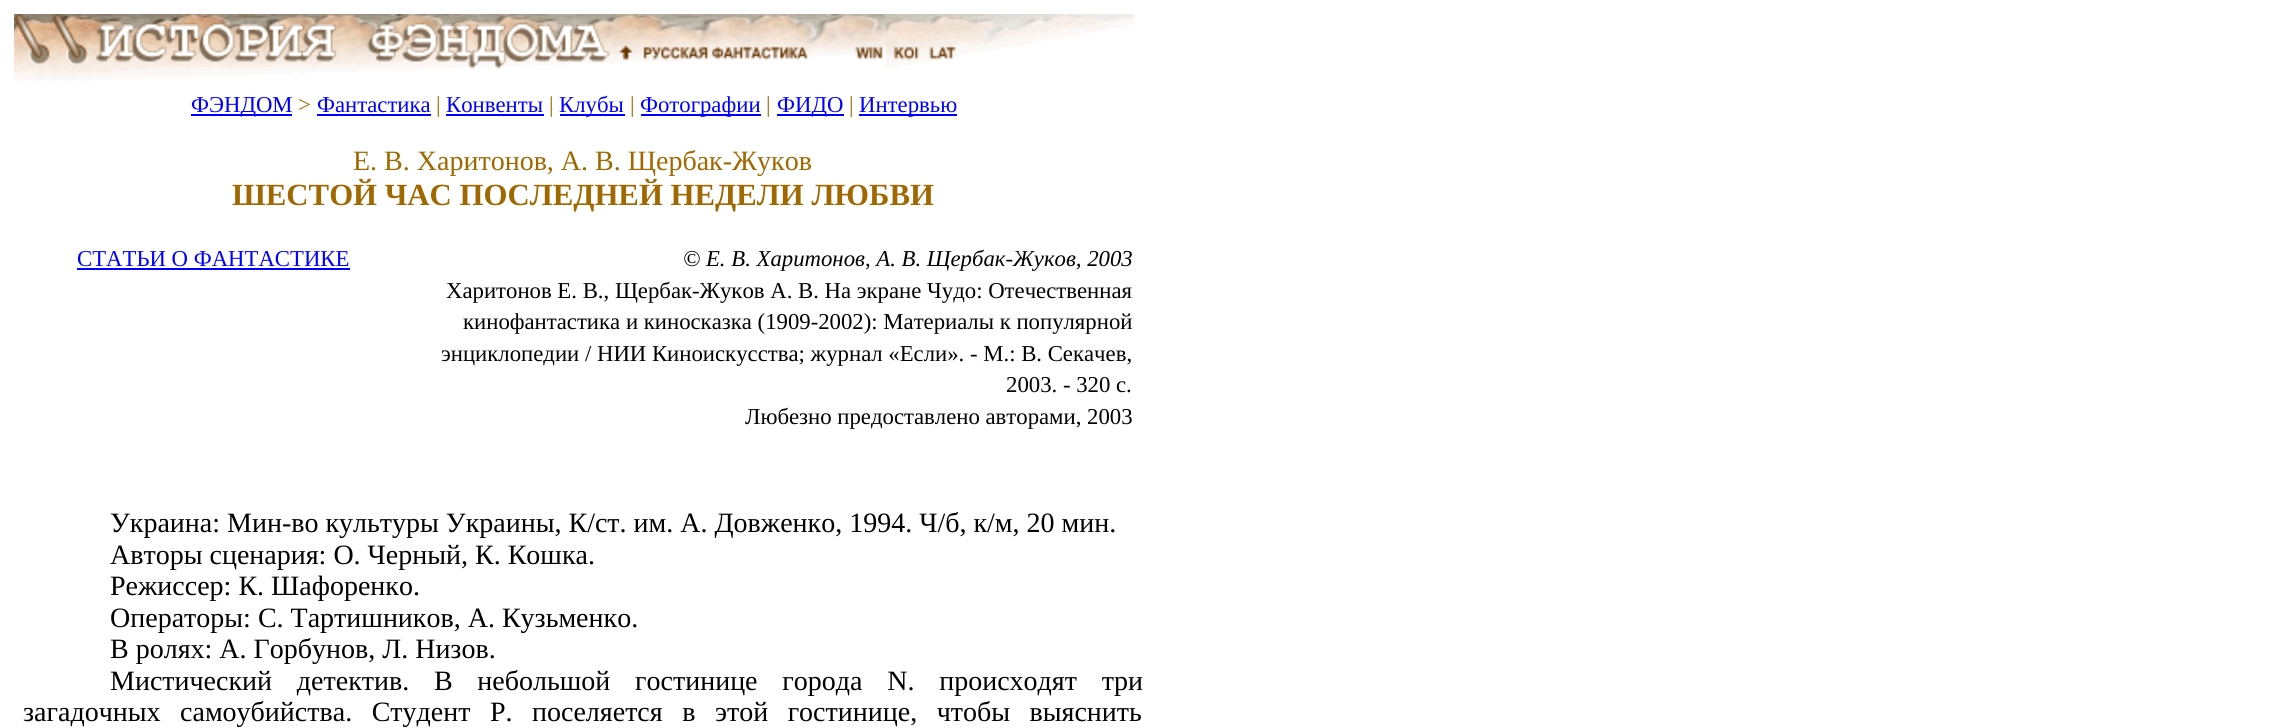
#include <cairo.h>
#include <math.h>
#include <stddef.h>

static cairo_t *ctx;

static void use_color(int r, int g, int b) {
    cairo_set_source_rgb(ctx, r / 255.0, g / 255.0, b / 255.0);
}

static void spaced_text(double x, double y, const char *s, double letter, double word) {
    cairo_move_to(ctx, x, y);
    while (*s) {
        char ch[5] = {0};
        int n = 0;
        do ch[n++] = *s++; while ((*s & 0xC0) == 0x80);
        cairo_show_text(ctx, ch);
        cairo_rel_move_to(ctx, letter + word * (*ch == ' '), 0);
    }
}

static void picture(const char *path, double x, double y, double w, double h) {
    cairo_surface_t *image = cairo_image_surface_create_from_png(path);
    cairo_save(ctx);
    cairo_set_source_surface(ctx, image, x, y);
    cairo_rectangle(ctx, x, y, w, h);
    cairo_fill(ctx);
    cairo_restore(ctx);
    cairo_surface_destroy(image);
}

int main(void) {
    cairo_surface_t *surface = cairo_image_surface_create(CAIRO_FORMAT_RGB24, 2270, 728);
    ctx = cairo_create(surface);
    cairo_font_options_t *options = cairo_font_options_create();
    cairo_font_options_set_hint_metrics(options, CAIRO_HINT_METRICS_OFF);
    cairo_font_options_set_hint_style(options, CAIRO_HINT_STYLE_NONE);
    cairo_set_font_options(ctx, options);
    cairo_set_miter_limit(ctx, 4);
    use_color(255, 255, 255);
    cairo_paint(ctx);
    picture("img1.png", 14, 14, 1120, 67);
    use_color(0, 0, 255);
    cairo_rectangle(ctx, 191, 114, 101, 2);
    cairo_fill(ctx);
    cairo_select_font_face(ctx, "Liberation Serif", CAIRO_FONT_SLANT_NORMAL, CAIRO_FONT_WEIGHT_NORMAL);
    cairo_set_font_size(ctx, 22.75);
    cairo_move_to(ctx, 191, 112);
    cairo_show_text(ctx, "ФЭНДОМ");
    use_color(160, 104, 0);
    cairo_move_to(ctx, 298, 112);
    cairo_show_text(ctx, ">");
    use_color(0, 0, 255);
    cairo_move_to(ctx, 317, 112);
    cairo_show_text(ctx, "Фантастика");
    cairo_rectangle(ctx, 317, 114, 114, 2);
    cairo_fill(ctx);
    use_color(160, 104, 0);
    cairo_move_to(ctx, 436, 112);
    cairo_show_text(ctx, "|");
    use_color(0, 0, 255);
    cairo_move_to(ctx, 446, 112);
    cairo_show_text(ctx, "Конвенты");
    cairo_rectangle(ctx, 446, 114, 98, 2);
    cairo_fill(ctx);
    use_color(160, 104, 0);
    cairo_move_to(ctx, 549, 112);
    cairo_show_text(ctx, "|");
    use_color(0, 0, 255);
    cairo_rectangle(ctx, 560, 114, 65, 2);
    cairo_fill(ctx);
    cairo_move_to(ctx, 559, 112);
    cairo_show_text(ctx, "Клубы");
    use_color(160, 104, 0);
    cairo_move_to(ctx, 630, 112);
    cairo_show_text(ctx, "|");
    use_color(0, 0, 255);
    cairo_rectangle(ctx, 641, 114, 120, 2);
    cairo_fill(ctx);
    cairo_move_to(ctx, 640, 112);
    cairo_show_text(ctx, "Фотографии");
    use_color(160, 104, 0);
    cairo_move_to(ctx, 766, 112);
    cairo_show_text(ctx, "|");
    use_color(0, 0, 255);
    cairo_rectangle(ctx, 777, 114, 67, 2);
    cairo_fill(ctx);
    cairo_move_to(ctx, 777, 112);
    cairo_show_text(ctx, "ФИДО");
    use_color(160, 104, 0);
    cairo_move_to(ctx, 849, 112);
    cairo_show_text(ctx, "|");
    use_color(0, 0, 255);
    cairo_rectangle(ctx, 859, 114, 98, 2);
    cairo_fill(ctx);
    cairo_move_to(ctx, 859, 112);
    cairo_show_text(ctx, "Интервью");
    cairo_set_font_size(ctx, 28);
    use_color(160, 104, 0);
    cairo_move_to(ctx, 353, 170);
    cairo_show_text(ctx, "Е. В. Харитонов, А. В. Щербак-Жуков");
    cairo_select_font_face(ctx, "Liberation Serif", CAIRO_FONT_SLANT_NORMAL, CAIRO_FONT_WEIGHT_BOLD);
    cairo_set_font_size(ctx, 30.8);
    cairo_move_to(ctx, 232, 205);
    cairo_show_text(ctx, "ШЕСТОЙ ЧАС ПОСЛЕДНЕЙ НЕДЕЛИ ЛЮБВИ");
    cairo_select_font_face(ctx, "Liberation Serif", CAIRO_FONT_SLANT_NORMAL, CAIRO_FONT_WEIGHT_NORMAL);
    cairo_set_font_size(ctx, 22.75);
    use_color(0, 0, 255);
    cairo_move_to(ctx, 77, 266);
    cairo_show_text(ctx, "СТАТЬИ О ФАНТАСТИКЕ");
    cairo_rectangle(ctx, 77, 268, 273, 2);
    cairo_fill(ctx);
    cairo_select_font_face(ctx, "Liberation Serif", CAIRO_FONT_SLANT_ITALIC, CAIRO_FONT_WEIGHT_NORMAL);
    use_color(0, 0, 0);
    cairo_move_to(ctx, 683, 266);
    cairo_show_text(ctx, "© Е. В. Харитонов, А. В. Щербак-Жуков, 2003");
    cairo_select_font_face(ctx, "Liberation Serif", CAIRO_FONT_SLANT_NORMAL, CAIRO_FONT_WEIGHT_NORMAL);
    cairo_move_to(ctx, 446, 298);
    cairo_show_text(ctx, "Харитонов Е. В., Щербак-Жуков А. В. На экране Чудо: Отечественная");
    cairo_move_to(ctx, 463, 329);
    cairo_show_text(ctx, "кинофантастика и киносказка (1909-2002): Материалы к популярной");
    cairo_move_to(ctx, 441, 361);
    cairo_show_text(ctx, "энциклопедии / НИИ Киноискусства; журнал «Если». - М.: В. Секачев,");
    cairo_move_to(ctx, 1006, 392);
    cairo_show_text(ctx, "2003. - 320 с.");
    cairo_move_to(ctx, 745, 424);
    cairo_show_text(ctx, "Любезно предоставлено авторами, 2003");
    cairo_set_font_size(ctx, 28);
    cairo_move_to(ctx, 110, 532);
    cairo_show_text(ctx, "Украина: Мин-во культуры Украины, К/ст. им. А. Довженко, 1994. Ч/б, к/м, 20 мин.");
    cairo_move_to(ctx, 110, 564);
    cairo_show_text(ctx, "Авторы сценария: О. Черный, К. Кошка.");
    cairo_move_to(ctx, 110, 595);
    cairo_show_text(ctx, "Режиссер: К. Шафоренко.");
    cairo_move_to(ctx, 110, 627);
    cairo_show_text(ctx, "Операторы: С. Тартишников, А. Кузьменко.");
    cairo_move_to(ctx, 110, 658);
    cairo_show_text(ctx, "В ролях: А. Горбунов, Л. Низов.");
    spaced_text(110, 690, "Мистический детектив. В небольшой гостинице города N. происходят три", 0, 17.75);
    spaced_text(23, 721, "загадочных самоубийства. Студент Р. поселяется в этой гостинице, чтобы выяснить", 0, 12.5);
    cairo_surface_write_to_png(surface, "result.png");
    cairo_font_options_destroy(options);
    cairo_destroy(ctx);
    cairo_surface_destroy(surface);
    return 0;
}
